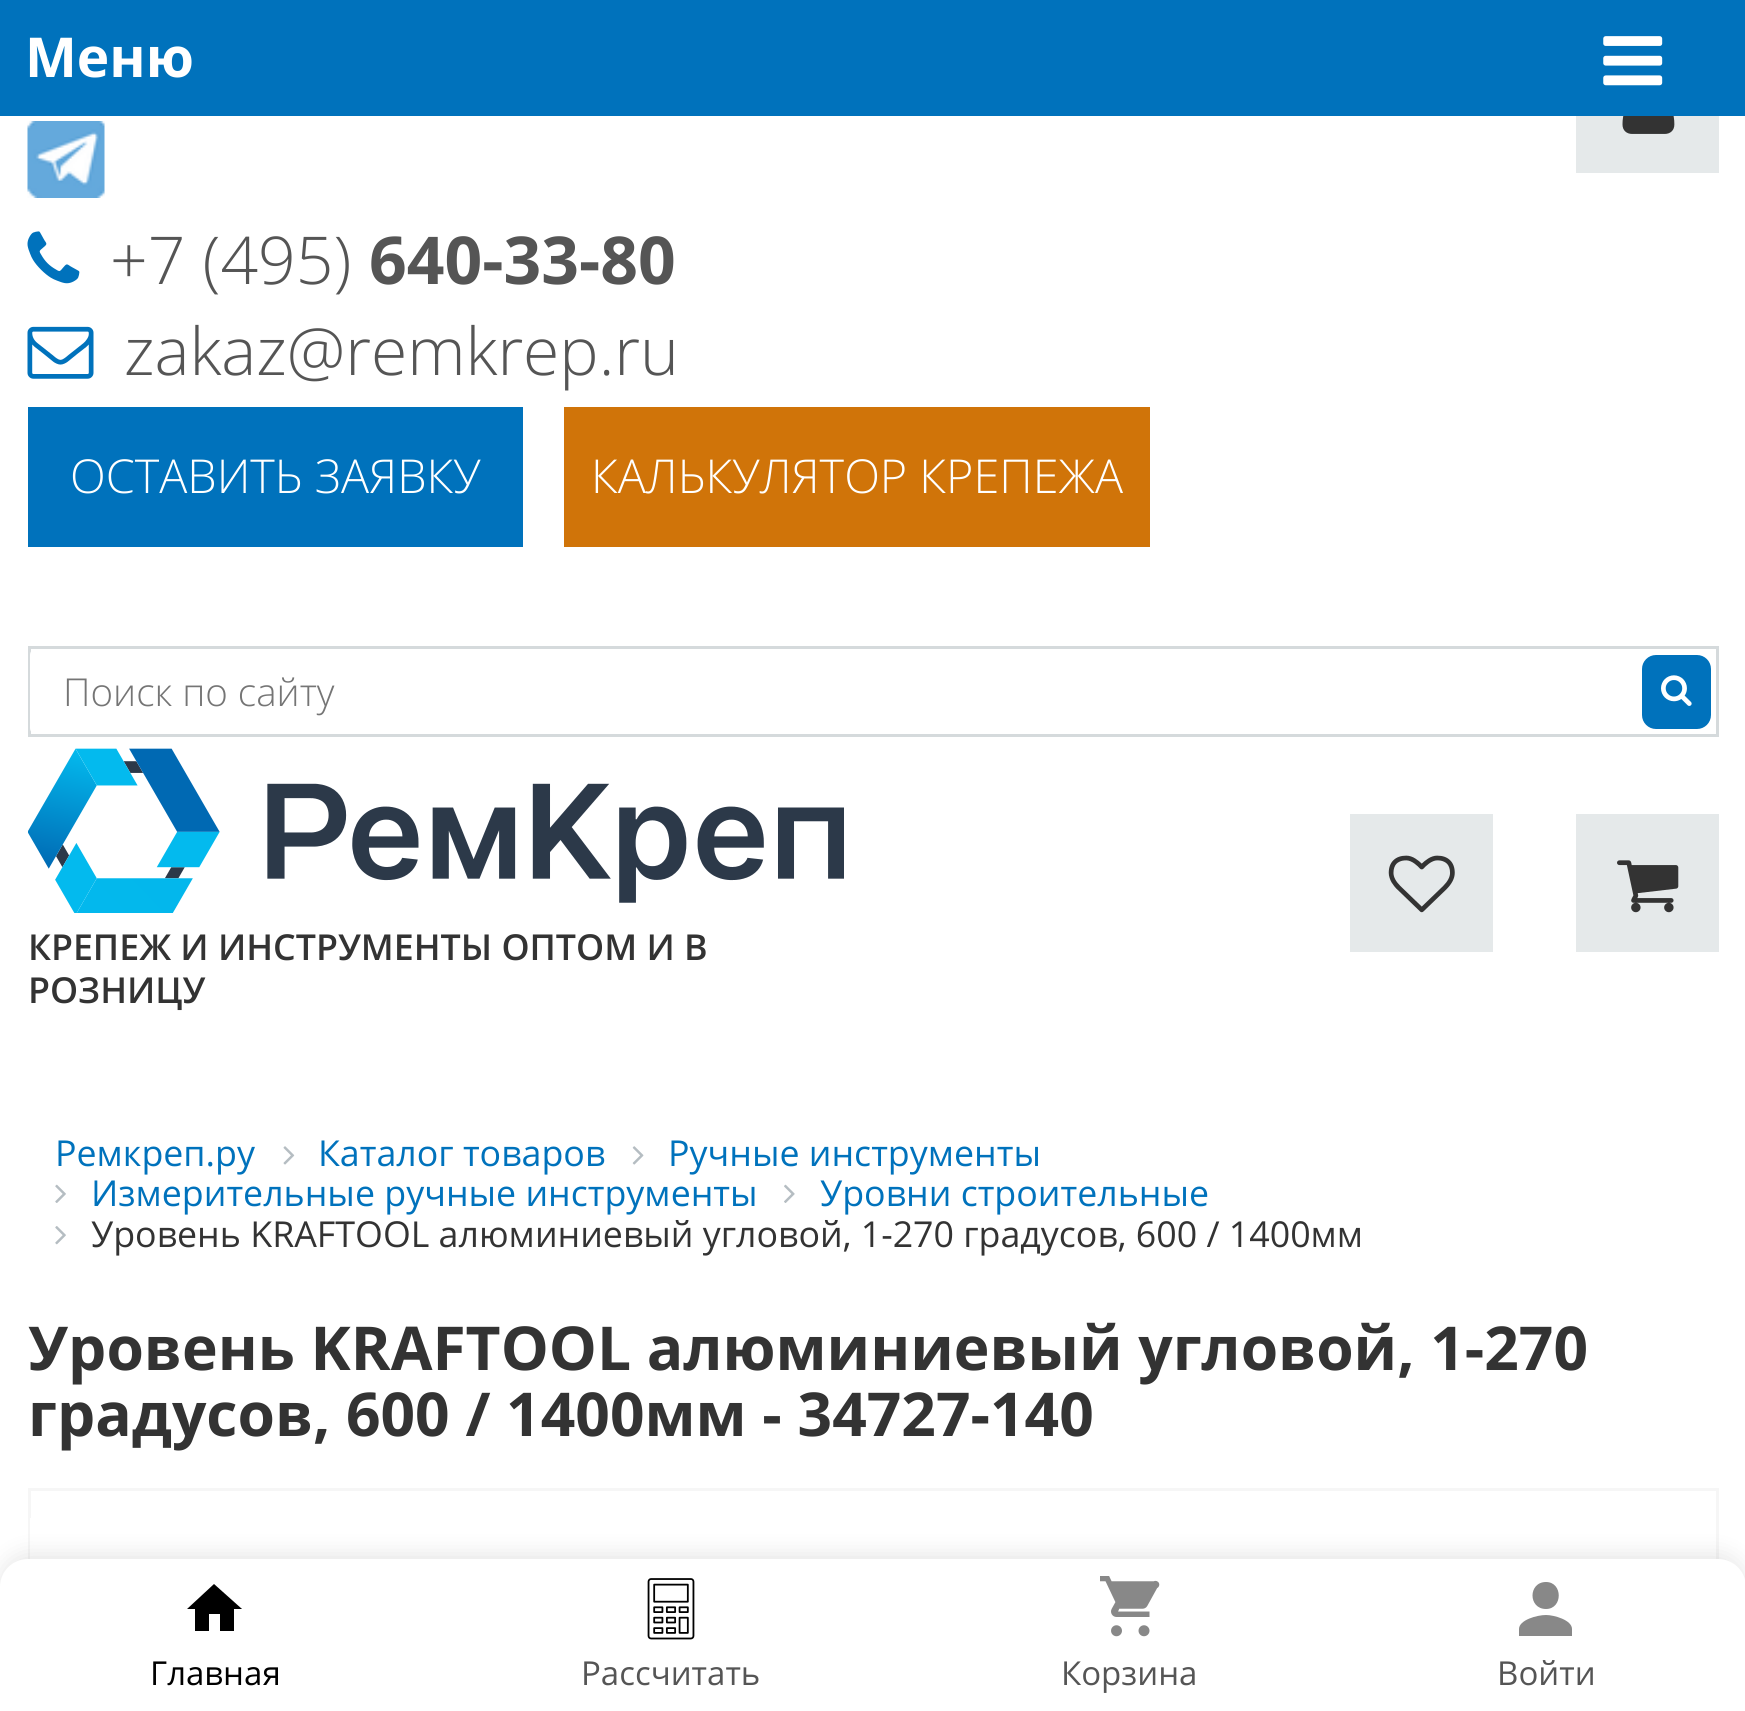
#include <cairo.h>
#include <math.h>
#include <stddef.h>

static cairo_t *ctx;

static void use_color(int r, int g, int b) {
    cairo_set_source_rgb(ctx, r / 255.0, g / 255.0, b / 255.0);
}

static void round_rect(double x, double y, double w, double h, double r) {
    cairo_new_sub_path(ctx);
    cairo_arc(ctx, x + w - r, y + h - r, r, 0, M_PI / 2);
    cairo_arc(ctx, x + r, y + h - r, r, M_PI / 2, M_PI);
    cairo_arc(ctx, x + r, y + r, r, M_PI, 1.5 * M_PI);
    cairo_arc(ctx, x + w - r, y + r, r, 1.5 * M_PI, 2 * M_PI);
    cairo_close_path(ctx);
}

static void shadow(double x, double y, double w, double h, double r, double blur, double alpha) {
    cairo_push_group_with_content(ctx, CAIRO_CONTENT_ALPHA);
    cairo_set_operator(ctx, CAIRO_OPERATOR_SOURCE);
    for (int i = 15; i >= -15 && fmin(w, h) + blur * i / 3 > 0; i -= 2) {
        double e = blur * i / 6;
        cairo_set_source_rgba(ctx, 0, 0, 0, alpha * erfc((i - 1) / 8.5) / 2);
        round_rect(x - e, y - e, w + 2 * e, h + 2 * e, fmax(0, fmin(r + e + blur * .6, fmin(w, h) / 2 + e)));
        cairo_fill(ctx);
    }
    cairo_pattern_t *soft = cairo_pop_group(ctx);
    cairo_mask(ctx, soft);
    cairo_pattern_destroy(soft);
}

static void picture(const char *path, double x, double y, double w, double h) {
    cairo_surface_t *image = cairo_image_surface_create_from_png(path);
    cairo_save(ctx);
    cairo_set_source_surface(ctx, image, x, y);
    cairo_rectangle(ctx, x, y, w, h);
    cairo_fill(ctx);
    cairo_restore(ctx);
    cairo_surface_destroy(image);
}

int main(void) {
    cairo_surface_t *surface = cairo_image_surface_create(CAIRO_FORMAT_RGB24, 1745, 1711);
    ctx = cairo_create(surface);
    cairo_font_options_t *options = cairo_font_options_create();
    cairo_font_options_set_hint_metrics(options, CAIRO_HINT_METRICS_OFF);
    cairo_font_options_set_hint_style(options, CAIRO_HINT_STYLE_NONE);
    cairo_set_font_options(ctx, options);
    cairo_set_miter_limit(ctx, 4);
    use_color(255, 255, 255);
    cairo_paint(ctx);
    use_color(0, 114, 188);
    cairo_rectangle(ctx, 0, 0, 1745, 116);
    cairo_fill(ctx);
    cairo_select_font_face(ctx, "Open Sans", CAIRO_FONT_SLANT_NORMAL, CAIRO_FONT_WEIGHT_BOLD);
    cairo_set_font_size(ctx, 55);
    use_color(255, 255, 255);
    cairo_move_to(ctx, 25, 77);
    cairo_show_text(ctx, "Меню");
    picture("img1.png", 1603, 36, 60, 50);
    use_color(229, 233, 234);
    cairo_rectangle(ctx, 1576, 116, 143, 57);
    cairo_fill(ctx);
    picture("img2.png", 1622, 116, 53, 18);
    picture("img3.png", 27, 121, 78, 77);
    picture("img4.png", 27, 231, 53, 53);
    cairo_select_font_face(ctx, "Open Sans Light", CAIRO_FONT_SLANT_NORMAL, CAIRO_FONT_WEIGHT_NORMAL);
    cairo_set_font_size(ctx, 66);
    use_color(85, 85, 85);
    cairo_move_to(ctx, 110, 284);
    cairo_show_text(ctx, "+7 (495)");
    cairo_select_font_face(ctx, "Open Sans", CAIRO_FONT_SLANT_NORMAL, CAIRO_FONT_WEIGHT_BOLD);
    cairo_move_to(ctx, 369, 284);
    cairo_show_text(ctx, "640-33-80");
    picture("img5.png", 27, 326, 67, 53);
    cairo_select_font_face(ctx, "Open Sans Light", CAIRO_FONT_SLANT_NORMAL, CAIRO_FONT_WEIGHT_NORMAL);
    cairo_move_to(ctx, 124, 375);
    cairo_show_text(ctx, "zakaz@remkrep.ru");
    use_color(0, 114, 188);
    cairo_rectangle(ctx, 28, 407, 495, 140);
    cairo_fill(ctx);
    cairo_set_font_size(ctx, 46.75);
    use_color(255, 255, 255);
    cairo_move_to(ctx, 70, 493);
    cairo_show_text(ctx, "ОСТАВИТЬ ЗАЯВКУ");
    use_color(208, 116, 9);
    cairo_rectangle(ctx, 564, 407, 586, 140);
    cairo_fill(ctx);
    use_color(255, 255, 255);
    cairo_move_to(ctx, 591, 493);
    cairo_show_text(ctx, "КАЛЬКУЛЯТОР КРЕПЕЖА");
    cairo_rectangle(ctx, 29.5, 647.5, 1688, 88);
    use_color(213, 218, 220);
    cairo_set_line_width(ctx, 3);
    cairo_stroke(ctx);
    use_color(255, 255, 255);
    cairo_new_path(ctx);
    cairo_move_to(ctx, 36, 649);
    cairo_line_to(ctx, 1642, 649);
    cairo_line_to(ctx, 1642, 734);
    cairo_line_to(ctx, 36, 734);
    cairo_curve_to(ctx, 32.5, 734, 30, 731.5, 30, 728);
    cairo_line_to(ctx, 30, 655);
    cairo_curve_to(ctx, 30, 651.5, 32.5, 649, 36, 649);
    cairo_close_path(ctx);
    cairo_fill(ctx);
    cairo_set_font_size(ctx, 38.5);
    use_color(117, 117, 117);
    cairo_move_to(ctx, 63, 706);
    cairo_show_text(ctx, "Поиск по сайту");
    use_color(0, 114, 188);
    round_rect(1642, 655, 69, 74, 14);
    cairo_fill(ctx);
    picture("img6.png", 1661, 675, 31, 31);
    use_color(229, 233, 234);
    cairo_rectangle(ctx, 1350, 814, 143, 138);
    cairo_fill(ctx);
    picture("img7.png", 1388, 855, 67, 58);
    cairo_rectangle(ctx, 1576, 814, 143, 138);
    cairo_fill(ctx);
    picture("img8.png", 1617, 860, 62, 53);
    picture("img9.png", 28, 748, 816, 165);
    cairo_select_font_face(ctx, "Open Sans SemiBold", CAIRO_FONT_SLANT_NORMAL, CAIRO_FONT_WEIGHT_NORMAL);
    cairo_set_font_size(ctx, 35.75);
    use_color(51, 51, 51);
    cairo_move_to(ctx, 28, 960);
    cairo_show_text(ctx, "КРЕПЕЖ И ИНСТРУМЕНТЫ ОПТОМ И В");
    cairo_move_to(ctx, 28, 1003);
    cairo_show_text(ctx, "РОЗНИЦУ");
    cairo_select_font_face(ctx, "Open Sans", CAIRO_FONT_SLANT_NORMAL, CAIRO_FONT_WEIGHT_NORMAL);
    use_color(0, 114, 188);
    cairo_move_to(ctx, 55, 1166);
    cairo_show_text(ctx, "Ремкреп.ру");
    picture("img10.png", 283, 1146, 12, 19);
    cairo_move_to(ctx, 318, 1166);
    cairo_show_text(ctx, "Каталог товаров");
    picture("img11.png", 632, 1146, 12, 19);
    cairo_move_to(ctx, 668, 1166);
    cairo_show_text(ctx, "Ручные инструменты");
    picture("img12.png", 55, 1184, 11, 19);
    cairo_move_to(ctx, 91, 1206);
    cairo_show_text(ctx, "Измерительные ручные инструменты");
    picture("img13.png", 784, 1184, 11, 19);
    cairo_move_to(ctx, 820, 1206);
    cairo_show_text(ctx, "Уровни строительные");
    picture("img14.png", 55, 1226, 11, 19);
    use_color(51, 51, 51);
    cairo_move_to(ctx, 91, 1247);
    cairo_show_text(ctx, "Уровень KRAFTOOL алюминиевый угловой, 1-270 градусов, 600 / 1400мм");
    cairo_select_font_face(ctx, "Open Sans", CAIRO_FONT_SLANT_NORMAL, CAIRO_FONT_WEIGHT_BOLD);
    cairo_set_font_size(ctx, 60.5);
    cairo_move_to(ctx, 28, 1370);
    cairo_show_text(ctx, "Уровень KRAFTOOL алюминиевый угловой, 1-270");
    cairo_move_to(ctx, 28, 1436);
    cairo_show_text(ctx, "градусов, 600 / 1400мм - 34727-140");
    cairo_rectangle(ctx, 29.5, 1489.5, 1688, 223);
    use_color(246, 246, 246);
    cairo_stroke(ctx);
    use_color(255, 255, 255);
    cairo_rectangle(ctx, 30, 1518, 1, 41);
    cairo_fill(ctx);
    use_color(0, 0, 0);
    shadow(0, 1554, 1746, 154, 28, 11, 0.1);
    use_color(255, 255, 255);
    cairo_new_path(ctx);
    cairo_move_to(ctx, 28, 1559);
    cairo_line_to(ctx, 1718, 1559);
    cairo_curve_to(ctx, 1733.5, 1559, 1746, 1571.5, 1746, 1587);
    cairo_line_to(ctx, 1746, 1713);
    cairo_line_to(ctx, 0, 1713);
    cairo_line_to(ctx, 0, 1587);
    cairo_curve_to(ctx, 0, 1571.5, 12.5, 1559, 28, 1559);
    cairo_close_path(ctx);
    cairo_fill(ctx);
    use_color(0, 0, 0);
    cairo_new_path(ctx);
    cairo_move_to(ctx, 209, 1631);
    cairo_line_to(ctx, 209, 1614);
    cairo_line_to(ctx, 220, 1614);
    cairo_line_to(ctx, 220, 1631);
    cairo_line_to(ctx, 234, 1631);
    cairo_line_to(ctx, 234, 1609);
    cairo_line_to(ctx, 242, 1609);
    cairo_line_to(ctx, 214, 1584);
    cairo_line_to(ctx, 187, 1609);
    cairo_line_to(ctx, 195, 1609);
    cairo_line_to(ctx, 195, 1631);
    cairo_close_path(ctx);
    cairo_fill(ctx);
    cairo_select_font_face(ctx, "Open Sans", CAIRO_FONT_SLANT_NORMAL, CAIRO_FONT_WEIGHT_NORMAL);
    cairo_set_font_size(ctx, 33);
    cairo_move_to(ctx, 150, 1685);
    cairo_show_text(ctx, "Главная");
    picture("img15.png", 647, 1578, 48, 62);
    use_color(85, 85, 85);
    cairo_move_to(ctx, 581, 1685);
    cairo_show_text(ctx, "Рассчитать");
    picture("img16.png", 1100, 1576, 60, 61);
    cairo_move_to(ctx, 1061, 1685);
    cairo_show_text(ctx, "Корзина");
    use_color(136, 136, 136);
    cairo_new_path(ctx);
    cairo_move_to(ctx, 1546, 1609);
    cairo_curve_to(ctx, 1563, 1609, 1563, 1582, 1546, 1582);
    cairo_curve_to(ctx, 1528, 1582, 1528, 1609, 1546, 1609);
    cairo_close_path(ctx);
    cairo_move_to(ctx, 1546, 1615);
    cairo_curve_to(ctx, 1537, 1615, 1519, 1620, 1519, 1629);
    cairo_line_to(ctx, 1519, 1636);
    cairo_line_to(ctx, 1572, 1636);
    cairo_line_to(ctx, 1572, 1629);
    cairo_curve_to(ctx, 1572, 1620, 1554, 1615, 1546, 1615);
    cairo_close_path(ctx);
    cairo_fill(ctx);
    use_color(85, 85, 85);
    cairo_move_to(ctx, 1497, 1685);
    cairo_show_text(ctx, "Войти");
    cairo_surface_write_to_png(surface, "result.png");
    cairo_font_options_destroy(options);
    cairo_destroy(ctx);
    cairo_surface_destroy(surface);
    return 0;
}
